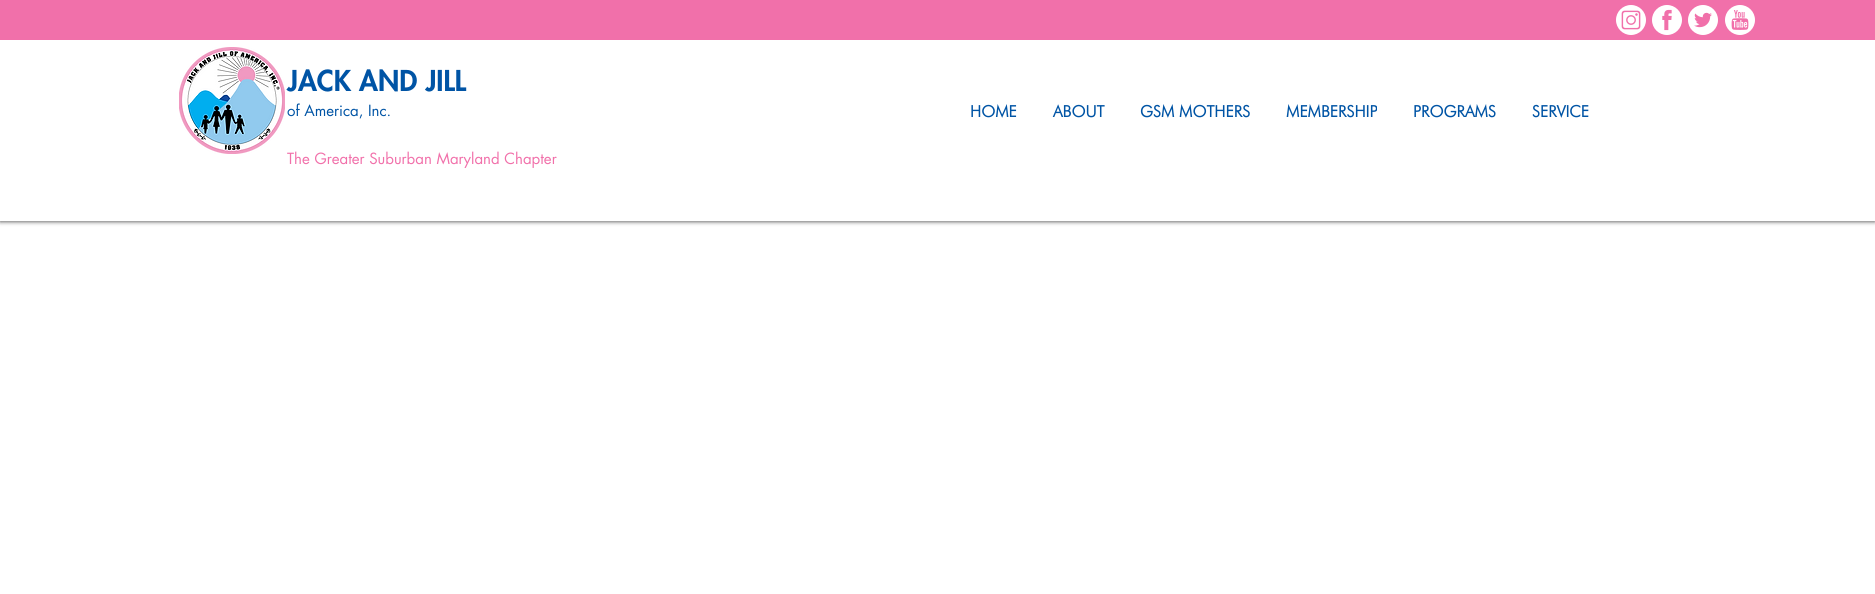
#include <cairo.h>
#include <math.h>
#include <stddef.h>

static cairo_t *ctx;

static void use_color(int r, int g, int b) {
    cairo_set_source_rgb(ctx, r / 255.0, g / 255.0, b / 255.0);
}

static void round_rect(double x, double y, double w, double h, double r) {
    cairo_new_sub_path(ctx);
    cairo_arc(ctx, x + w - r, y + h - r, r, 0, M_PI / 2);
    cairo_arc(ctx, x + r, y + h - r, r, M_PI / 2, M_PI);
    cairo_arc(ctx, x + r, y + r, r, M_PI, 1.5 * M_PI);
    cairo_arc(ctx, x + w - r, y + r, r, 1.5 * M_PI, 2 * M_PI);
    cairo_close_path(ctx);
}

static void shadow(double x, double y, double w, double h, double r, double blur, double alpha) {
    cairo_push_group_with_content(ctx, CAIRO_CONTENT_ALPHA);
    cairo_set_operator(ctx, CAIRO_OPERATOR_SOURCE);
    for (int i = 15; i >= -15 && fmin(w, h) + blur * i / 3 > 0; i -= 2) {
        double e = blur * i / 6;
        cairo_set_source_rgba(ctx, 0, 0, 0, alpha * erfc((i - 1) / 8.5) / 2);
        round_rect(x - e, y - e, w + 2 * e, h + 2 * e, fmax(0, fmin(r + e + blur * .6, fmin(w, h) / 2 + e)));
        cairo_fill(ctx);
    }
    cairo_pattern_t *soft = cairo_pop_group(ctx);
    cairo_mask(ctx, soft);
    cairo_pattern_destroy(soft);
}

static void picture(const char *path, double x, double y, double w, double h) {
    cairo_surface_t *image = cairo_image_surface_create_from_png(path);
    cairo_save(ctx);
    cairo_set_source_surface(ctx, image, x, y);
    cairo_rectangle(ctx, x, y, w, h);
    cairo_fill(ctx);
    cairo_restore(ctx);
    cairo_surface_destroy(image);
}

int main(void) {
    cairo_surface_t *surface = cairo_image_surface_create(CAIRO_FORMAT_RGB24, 1875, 594);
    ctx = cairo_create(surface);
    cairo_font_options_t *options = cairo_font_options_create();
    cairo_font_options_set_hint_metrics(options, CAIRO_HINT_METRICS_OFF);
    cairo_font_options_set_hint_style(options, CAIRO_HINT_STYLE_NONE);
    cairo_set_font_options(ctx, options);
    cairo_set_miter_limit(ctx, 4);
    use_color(255, 255, 255);
    cairo_paint(ctx);
    use_color(0, 0, 0);
    shadow(0, 1, 1875, 221, 0, 2, 0.6);
    use_color(241, 112, 170);
    cairo_rectangle(ctx, 0, 0, 1875, 40);
    cairo_fill(ctx);
    picture("img1.png", 1616, 5, 30, 30);
    picture("img2.png", 1652, 5, 30, 30);
    picture("img3.png", 1688, 5, 30, 30);
    picture("img4.png", 1725, 5, 30, 30);
    use_color(255, 255, 255);
    cairo_rectangle(ctx, 0, 40, 1875, 181);
    cairo_fill(ctx);
    picture("img5.png", 179, 47, 106, 107);
    cairo_select_font_face(ctx, "Futura Black", CAIRO_FONT_SLANT_NORMAL, CAIRO_FONT_WEIGHT_NORMAL);
    cairo_set_font_size(ctx, 28);
    use_color(0, 84, 165);
    cairo_move_to(ctx, 287, 91);
    cairo_show_text(ctx, "JACK AND JILL");
    cairo_select_font_face(ctx, "Futura", CAIRO_FONT_SLANT_NORMAL, CAIRO_FONT_WEIGHT_NORMAL);
    cairo_set_font_size(ctx, 15);
    cairo_move_to(ctx, 287, 116);
    cairo_show_text(ctx, "of America, Inc.");
    use_color(241, 112, 170);
    cairo_move_to(ctx, 287, 164);
    cairo_show_text(ctx, "The Greater Suburban Maryland Chapter");
    cairo_select_font_face(ctx, "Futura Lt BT", CAIRO_FONT_SLANT_NORMAL, CAIRO_FONT_WEIGHT_BOLD);
    cairo_set_font_size(ctx, 16);
    use_color(0, 84, 165);
    cairo_move_to(ctx, 970, 117);
    cairo_show_text(ctx, "HOME");
    cairo_move_to(ctx, 1053, 117);
    cairo_show_text(ctx, "ABOUT");
    cairo_move_to(ctx, 1140, 117);
    cairo_show_text(ctx, "GSM MOTHERS");
    cairo_move_to(ctx, 1286, 117);
    cairo_show_text(ctx, "MEMBERSHIP");
    cairo_move_to(ctx, 1413, 117);
    cairo_show_text(ctx, "PROGRAMS");
    cairo_move_to(ctx, 1532, 117);
    cairo_show_text(ctx, "SERVICE");
    cairo_surface_write_to_png(surface, "result.png");
    cairo_font_options_destroy(options);
    cairo_destroy(ctx);
    cairo_surface_destroy(surface);
    return 0;
}
